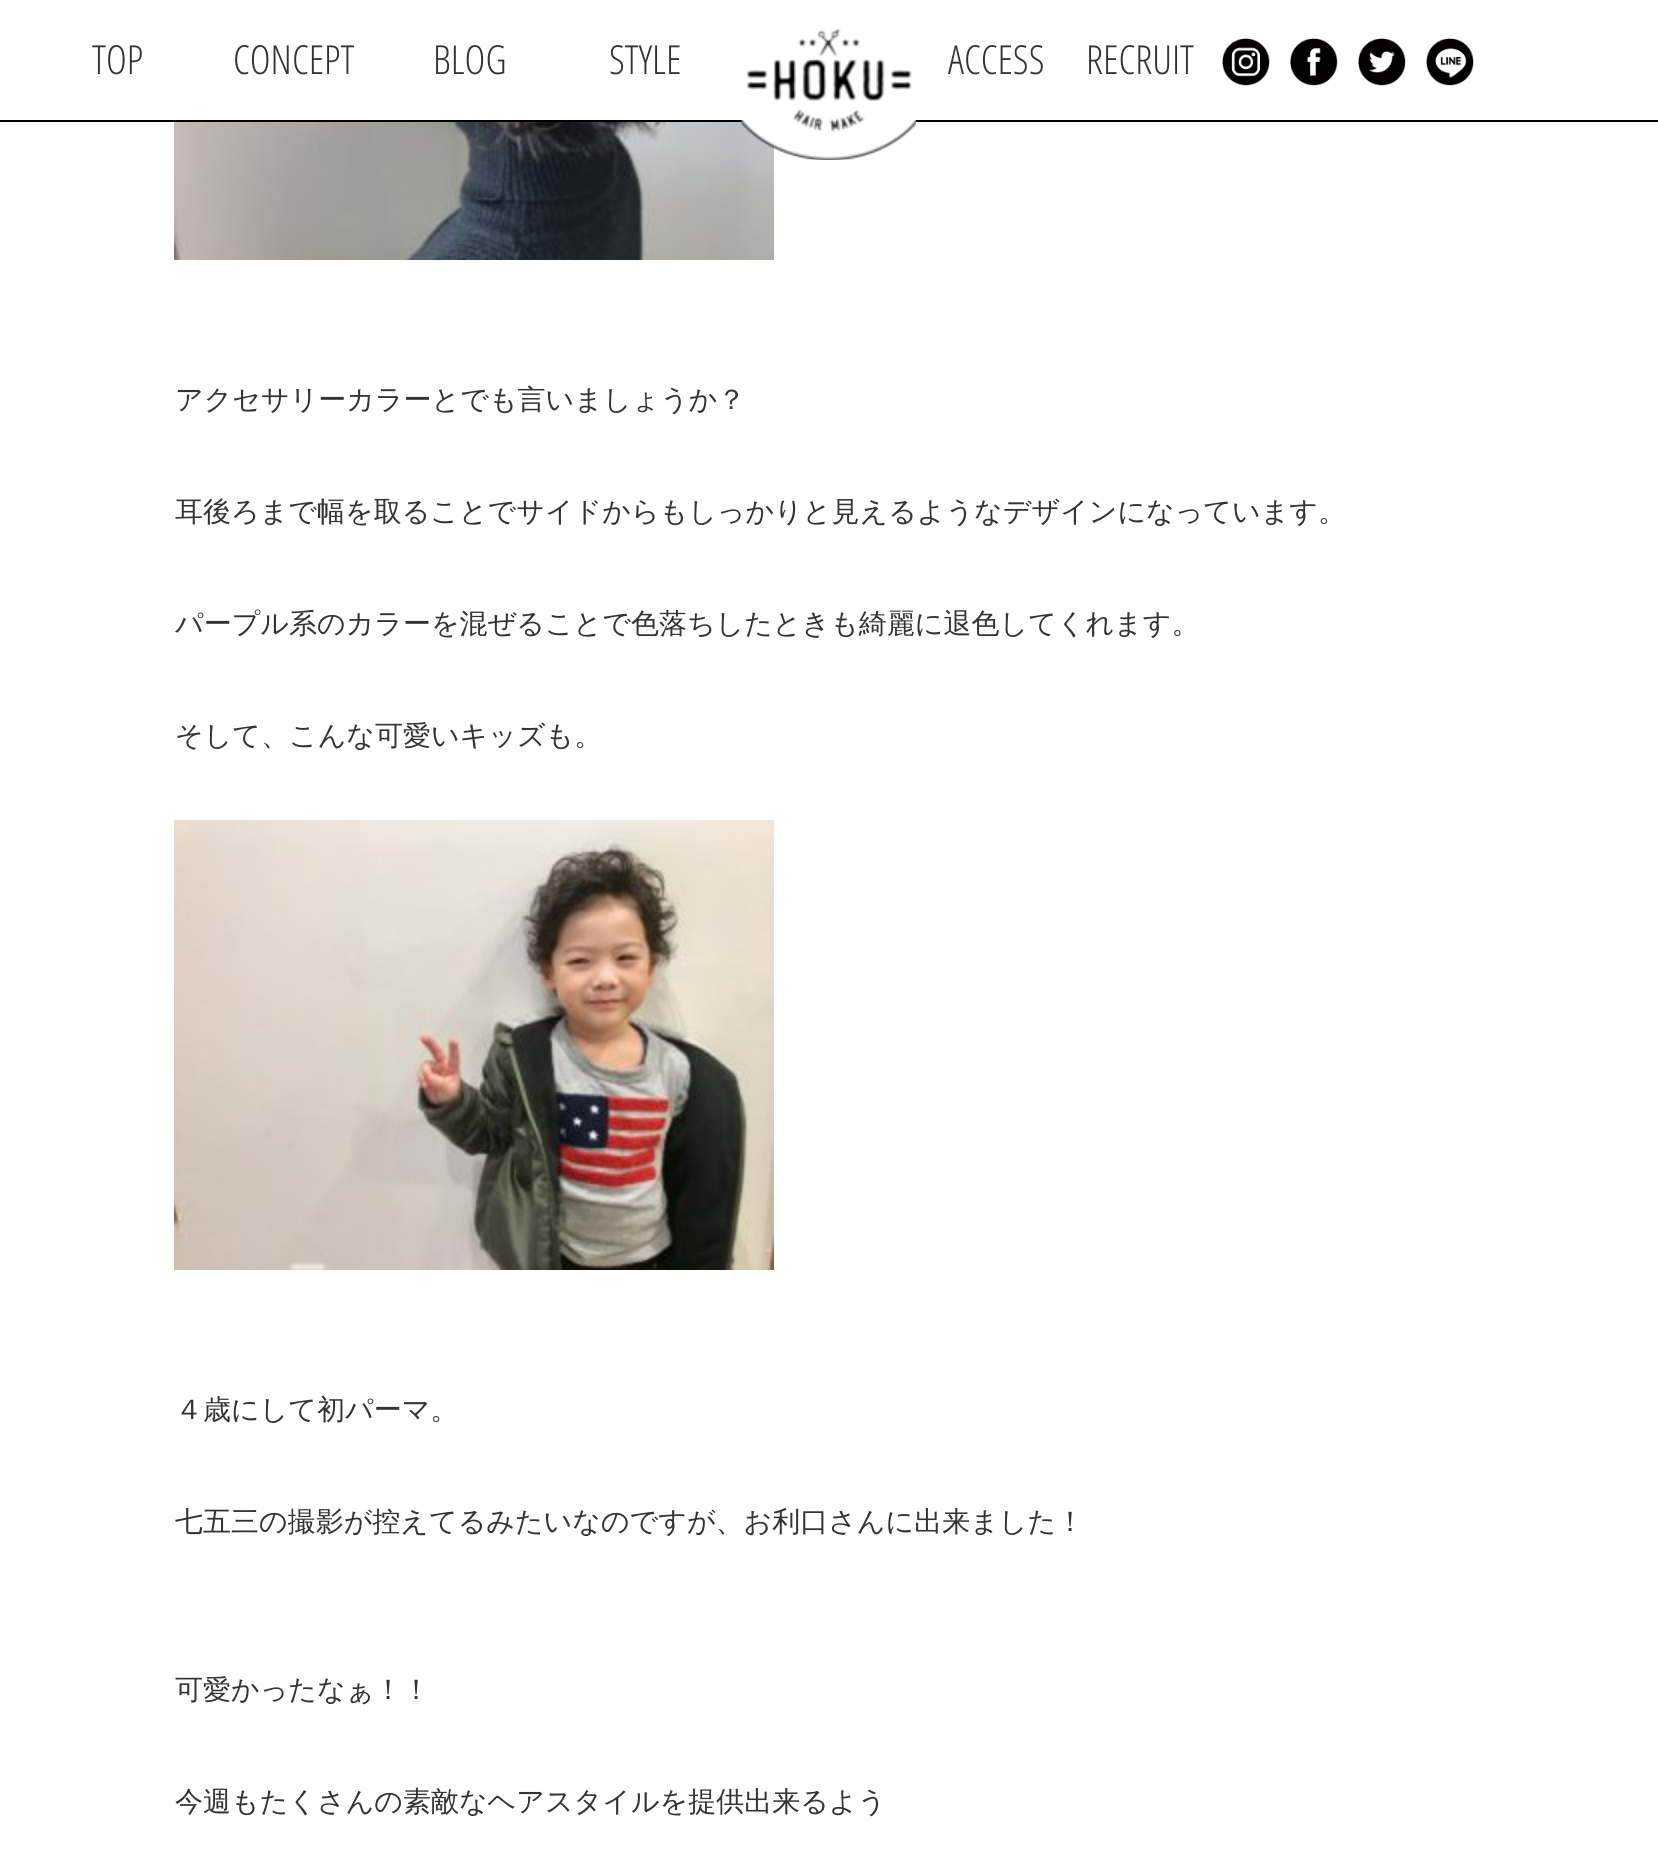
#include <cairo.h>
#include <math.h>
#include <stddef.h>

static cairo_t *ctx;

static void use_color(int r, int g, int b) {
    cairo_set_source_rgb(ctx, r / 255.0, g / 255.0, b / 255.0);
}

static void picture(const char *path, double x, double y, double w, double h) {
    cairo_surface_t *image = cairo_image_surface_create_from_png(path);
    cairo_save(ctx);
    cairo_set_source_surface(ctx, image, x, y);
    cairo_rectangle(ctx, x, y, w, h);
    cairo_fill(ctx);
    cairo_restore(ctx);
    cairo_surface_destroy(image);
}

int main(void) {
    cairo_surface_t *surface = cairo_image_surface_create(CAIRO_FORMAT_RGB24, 1658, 1853);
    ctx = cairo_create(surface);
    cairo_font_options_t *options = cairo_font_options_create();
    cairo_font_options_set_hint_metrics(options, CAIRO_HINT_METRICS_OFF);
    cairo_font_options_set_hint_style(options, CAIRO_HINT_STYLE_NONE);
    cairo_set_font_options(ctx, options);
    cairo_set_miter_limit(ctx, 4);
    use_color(255, 255, 255);
    cairo_paint(ctx);
    use_color(0, 0, 0);
    cairo_rectangle(ctx, 0, 120, 1658, 2);
    cairo_fill(ctx);
    cairo_select_font_face(ctx, "Open Sans Condensed Light", CAIRO_FONT_SLANT_NORMAL, CAIRO_FONT_WEIGHT_NORMAL);
    cairo_set_font_size(ctx, 40);
    use_color(51, 51, 51);
    cairo_move_to(ctx, 92, 74);
    cairo_show_text(ctx, "TOP");
    cairo_move_to(ctx, 233, 74);
    cairo_show_text(ctx, "CONCEPT");
    cairo_move_to(ctx, 433, 74);
    cairo_show_text(ctx, "BLOG");
    cairo_move_to(ctx, 609, 74);
    cairo_show_text(ctx, "STYLE");
    picture("img6.png", 174, 122, 600, 138);
    picture("img1.png", 741, 28, 175, 132);
    cairo_move_to(ctx, 948, 74);
    cairo_show_text(ctx, "ACCESS");
    cairo_move_to(ctx, 1086, 74);
    cairo_show_text(ctx, "RECRUIT");
    picture("img2.png", 1222, 38, 48, 48);
    picture("img3.png", 1290, 38, 48, 48);
    picture("img4.png", 1358, 38, 48, 48);
    picture("img5.png", 1426, 38, 48, 48);
    cairo_select_font_face(ctx, "WenQuanYi Zen Hei Medium", CAIRO_FONT_SLANT_NORMAL, CAIRO_FONT_WEIGHT_NORMAL);
    cairo_set_font_size(ctx, 28);
    cairo_move_to(ctx, 175, 409);
    cairo_show_text(ctx, "アクセサリーカラーとでも言いましょうか？");
    cairo_move_to(ctx, 175, 521);
    cairo_show_text(ctx, "耳後ろまで幅を取ることでサイドからもしっかりと見えるようなデザインになっています。");
    cairo_move_to(ctx, 175, 633);
    cairo_show_text(ctx, "パープル系のカラーを混ぜることで色落ちしたときも綺麗に退色してくれます。");
    cairo_move_to(ctx, 175, 745);
    cairo_show_text(ctx, "そして、こんな可愛いキッズも。");
    picture("img7.png", 174, 820, 600, 450);
    cairo_move_to(ctx, 175, 1419);
    cairo_show_text(ctx, "４歳にして初パーマ。");
    cairo_move_to(ctx, 175, 1531);
    cairo_show_text(ctx, "七五三の撮影が控えてるみたいなのですが、お利口さんに出来ました！");
    cairo_move_to(ctx, 175, 1699);
    cairo_show_text(ctx, "可愛かったなぁ！！");
    cairo_move_to(ctx, 175, 1811);
    cairo_show_text(ctx, "今週もたくさんの素敵なヘアスタイルを提供出来るよう");
    cairo_surface_write_to_png(surface, "result.png");
    cairo_font_options_destroy(options);
    cairo_destroy(ctx);
    cairo_surface_destroy(surface);
    return 0;
}
